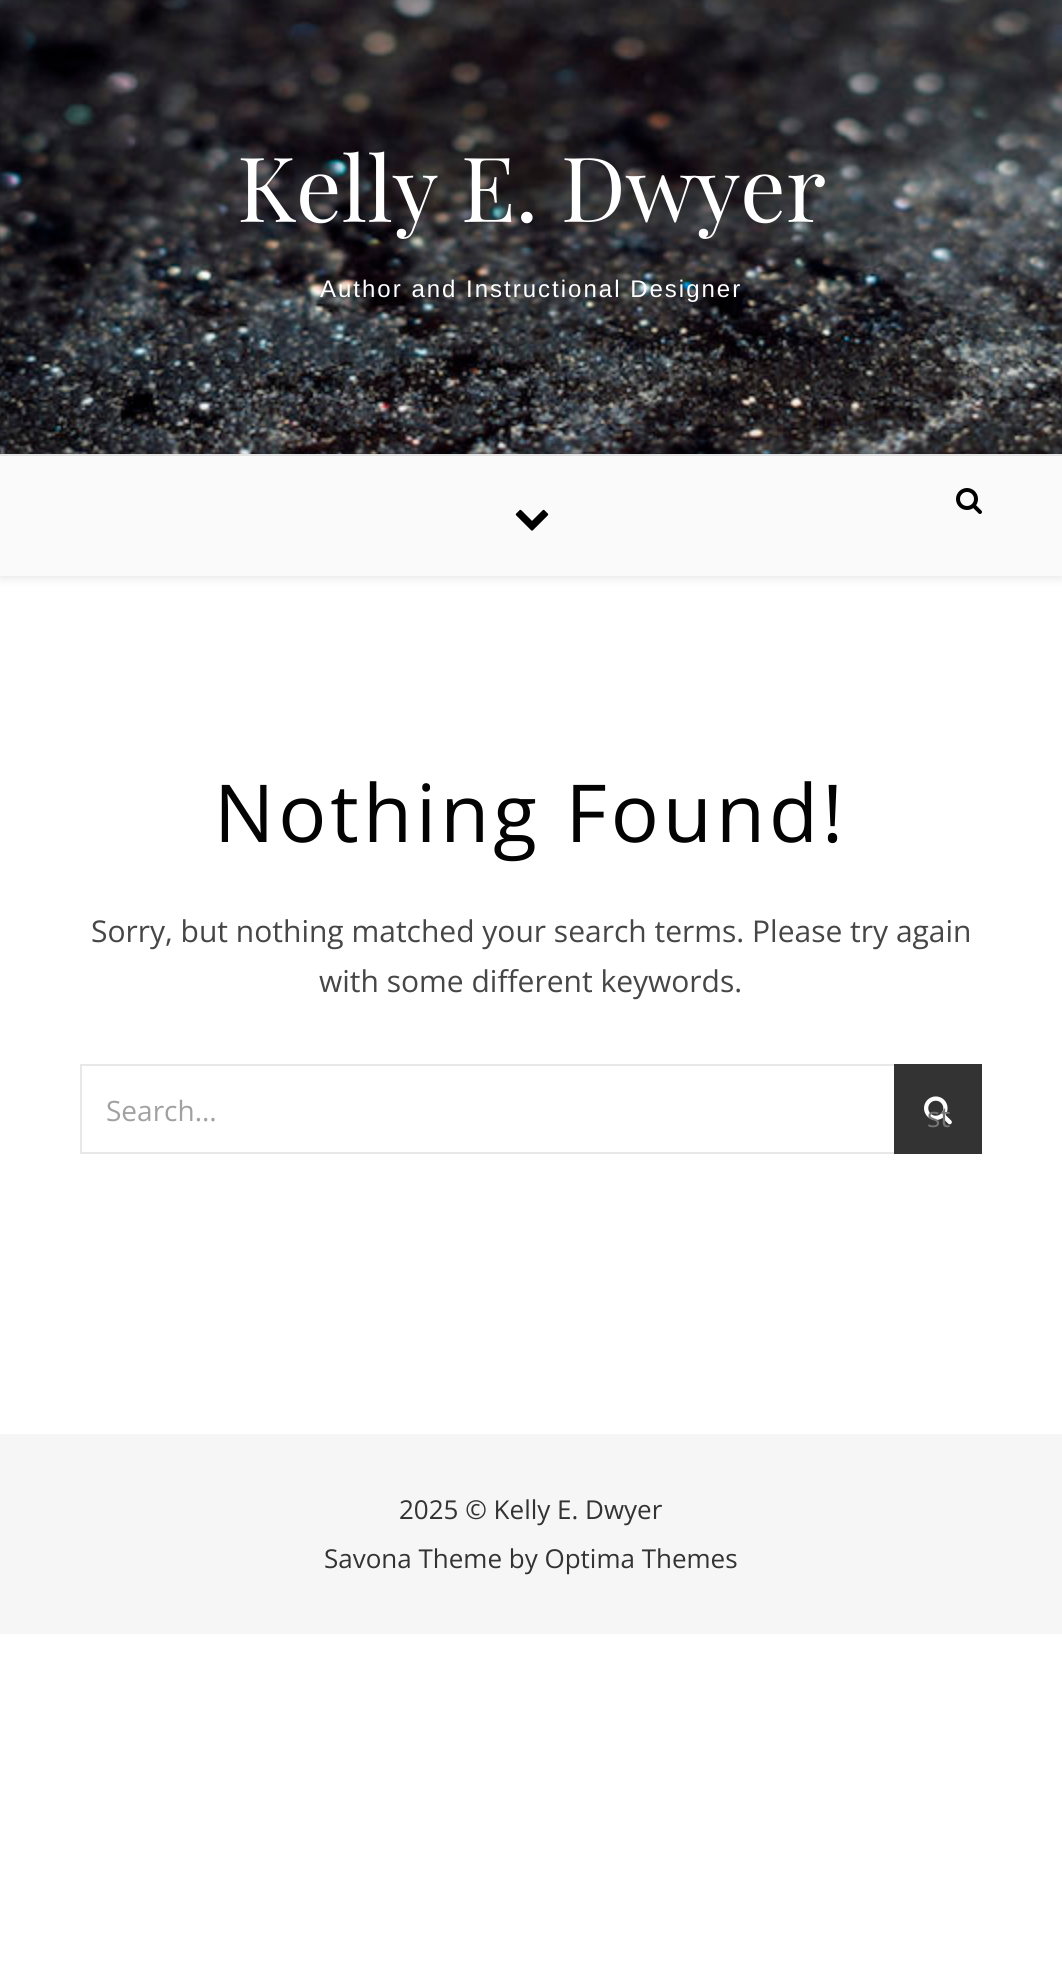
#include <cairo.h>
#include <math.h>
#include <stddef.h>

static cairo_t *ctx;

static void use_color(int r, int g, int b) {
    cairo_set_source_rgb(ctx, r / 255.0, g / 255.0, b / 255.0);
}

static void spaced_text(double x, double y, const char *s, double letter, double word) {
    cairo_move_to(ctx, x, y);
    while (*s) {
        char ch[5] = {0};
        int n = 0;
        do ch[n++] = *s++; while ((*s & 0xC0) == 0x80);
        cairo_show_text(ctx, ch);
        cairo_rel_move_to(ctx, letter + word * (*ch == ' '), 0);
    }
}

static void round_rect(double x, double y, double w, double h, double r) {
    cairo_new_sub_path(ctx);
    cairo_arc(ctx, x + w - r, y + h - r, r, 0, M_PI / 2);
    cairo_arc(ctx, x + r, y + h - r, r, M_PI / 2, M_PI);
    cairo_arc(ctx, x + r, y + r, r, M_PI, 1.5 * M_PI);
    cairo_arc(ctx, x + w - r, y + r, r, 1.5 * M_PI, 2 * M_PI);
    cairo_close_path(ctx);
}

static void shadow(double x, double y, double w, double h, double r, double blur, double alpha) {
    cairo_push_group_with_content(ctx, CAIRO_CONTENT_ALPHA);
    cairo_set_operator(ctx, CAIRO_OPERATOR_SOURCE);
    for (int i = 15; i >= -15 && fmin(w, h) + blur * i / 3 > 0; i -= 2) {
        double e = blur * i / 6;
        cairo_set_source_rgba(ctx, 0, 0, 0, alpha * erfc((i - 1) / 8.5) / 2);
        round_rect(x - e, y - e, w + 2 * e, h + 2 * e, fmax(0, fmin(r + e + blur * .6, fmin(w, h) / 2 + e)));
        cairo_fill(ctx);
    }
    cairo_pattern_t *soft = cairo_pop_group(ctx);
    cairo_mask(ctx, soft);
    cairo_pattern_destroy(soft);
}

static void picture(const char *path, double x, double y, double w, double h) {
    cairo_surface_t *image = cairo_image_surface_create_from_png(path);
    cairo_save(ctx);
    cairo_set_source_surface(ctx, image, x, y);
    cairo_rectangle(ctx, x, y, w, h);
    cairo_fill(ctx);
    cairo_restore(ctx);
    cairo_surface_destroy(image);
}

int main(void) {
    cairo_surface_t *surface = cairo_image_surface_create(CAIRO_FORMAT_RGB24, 1062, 1978);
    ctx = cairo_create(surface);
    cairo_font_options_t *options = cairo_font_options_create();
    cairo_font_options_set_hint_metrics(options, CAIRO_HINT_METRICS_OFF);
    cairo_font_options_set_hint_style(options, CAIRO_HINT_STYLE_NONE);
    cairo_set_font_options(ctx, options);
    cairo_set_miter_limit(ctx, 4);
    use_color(255, 255, 255);
    cairo_paint(ctx);
    picture("img1.png", 0, 0, 1062, 454);
    use_color(235, 235, 235);
    cairo_rectangle(ctx, 0, 454, 1062, 2);
    cairo_fill(ctx);
    cairo_select_font_face(ctx, "Playfair Display", CAIRO_FONT_SLANT_NORMAL, CAIRO_FONT_WEIGHT_NORMAL);
    cairo_set_font_size(ctx, 90);
    use_color(255, 255, 255);
    cairo_move_to(ctx, 237, 222);
    cairo_show_text(ctx, "Kelly E. Dwyer");
    cairo_select_font_face(ctx, "Liberation Sans", CAIRO_FONT_SLANT_NORMAL, CAIRO_FONT_WEIGHT_NORMAL);
    cairo_set_font_size(ctx, 24);
    spaced_text(320, 297, "Author and Instructional Designer", 2, 0);
    use_color(0, 0, 0);
    shadow(0, 458, 1062, 120, 0, 5, 0.1);
    use_color(250, 250, 250);
    cairo_rectangle(ctx, 0, 456, 1062, 120);
    cairo_fill(ctx);
    picture("img2.png", 956, 488, 26, 26);
    picture("img3.png", 515, 509, 34, 22);
    cairo_select_font_face(ctx, "Open Sans", CAIRO_FONT_SLANT_NORMAL, CAIRO_FONT_WEIGHT_NORMAL);
    cairo_set_font_size(ctx, 80);
    use_color(3, 3, 3);
    spaced_text(214, 842, "Nothing Found!", 4, 0);
    cairo_set_font_size(ctx, 30);
    use_color(70, 70, 70);
    cairo_move_to(ctx, 91, 942);
    cairo_show_text(ctx, "Sorry, but nothing matched your search terms. Please try again");
    cairo_move_to(ctx, 319, 992);
    cairo_show_text(ctx, "with some different keywords.");
    cairo_rectangle(ctx, 81, 1065, 900, 88);
    use_color(232, 232, 232);
    cairo_stroke(ctx);
    cairo_set_font_size(ctx, 28);
    use_color(161, 161, 161);
    cairo_move_to(ctx, 106, 1121);
    cairo_show_text(ctx, "Search...");
    use_color(51, 51, 51);
    cairo_rectangle(ctx, 894, 1064, 88, 90);
    cairo_fill(ctx);
    picture("img4.png", 924, 1096, 28, 29);
    use_color(117, 117, 117);
    cairo_move_to(ctx, 927, 1127);
    cairo_show_text(ctx, "st");
    use_color(246, 246, 246);
    cairo_rectangle(ctx, 0, 1434, 1062, 200);
    cairo_fill(ctx);
    cairo_set_font_size(ctx, 26);
    use_color(51, 51, 51);
    cairo_move_to(ctx, 399, 1519);
    cairo_show_text(ctx, "2025 © Kelly E. Dwyer");
    cairo_move_to(ctx, 324, 1568);
    cairo_show_text(ctx, "Savona Theme by Optima Themes");
    cairo_surface_write_to_png(surface, "result.png");
    cairo_font_options_destroy(options);
    cairo_destroy(ctx);
    cairo_surface_destroy(surface);
    return 0;
}
